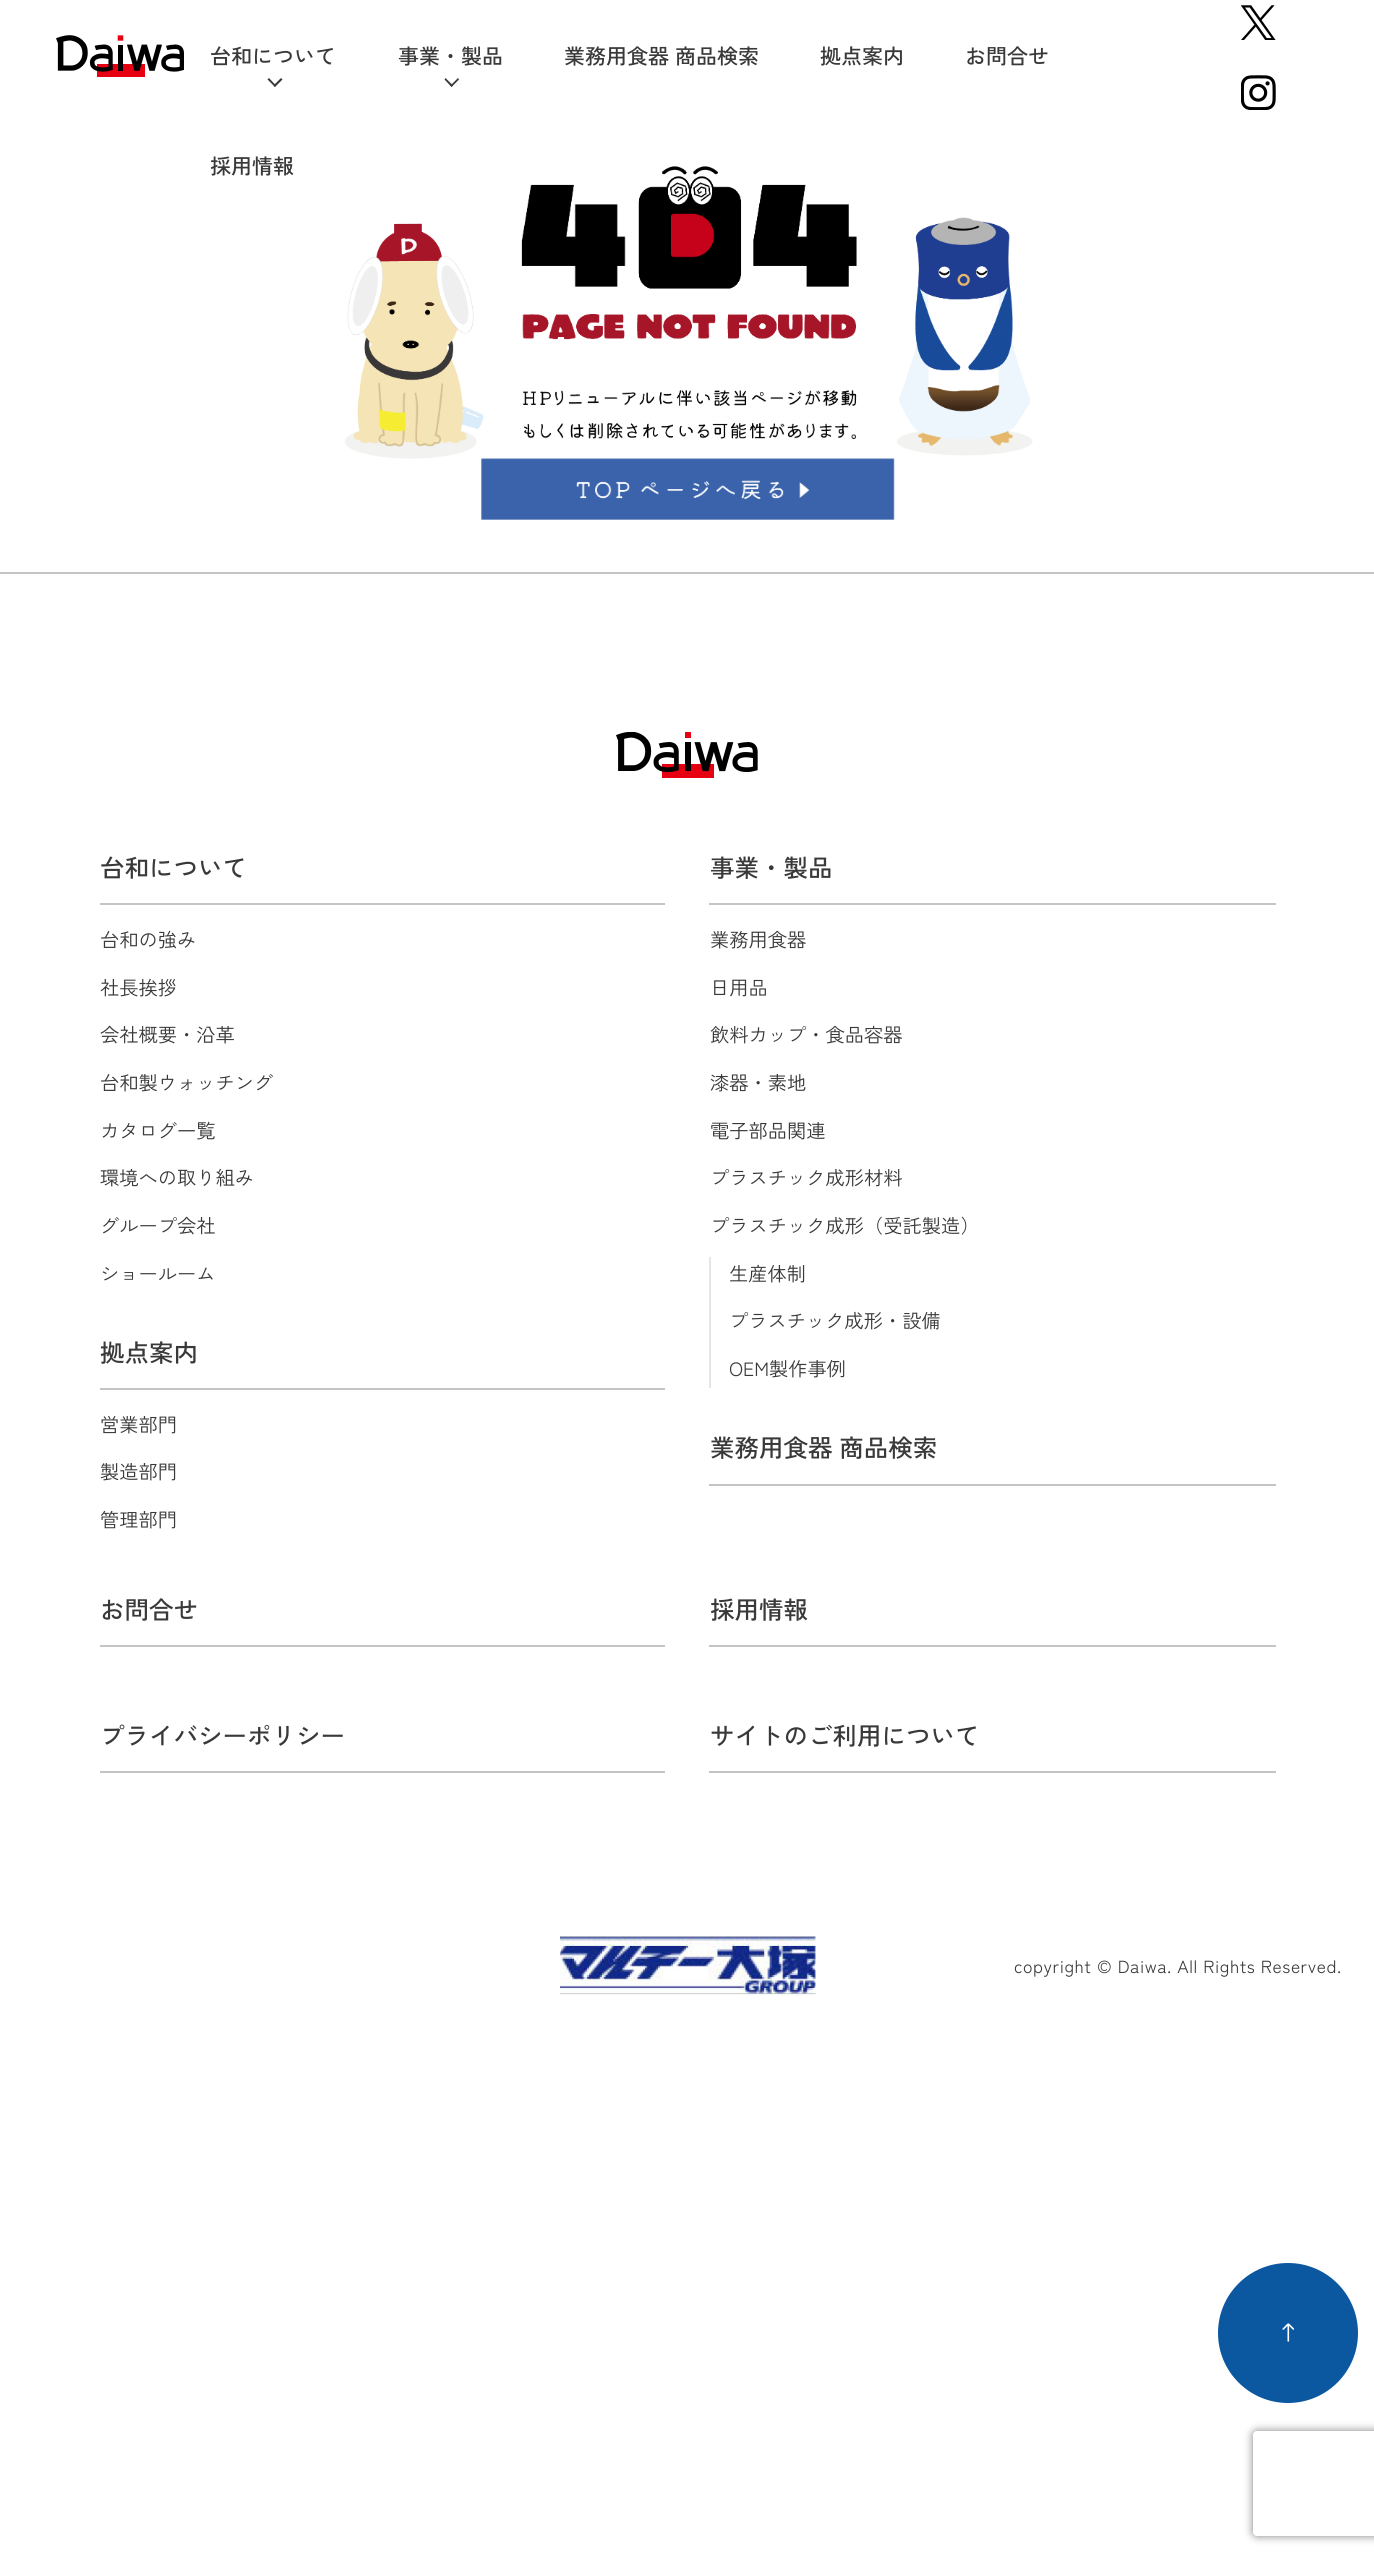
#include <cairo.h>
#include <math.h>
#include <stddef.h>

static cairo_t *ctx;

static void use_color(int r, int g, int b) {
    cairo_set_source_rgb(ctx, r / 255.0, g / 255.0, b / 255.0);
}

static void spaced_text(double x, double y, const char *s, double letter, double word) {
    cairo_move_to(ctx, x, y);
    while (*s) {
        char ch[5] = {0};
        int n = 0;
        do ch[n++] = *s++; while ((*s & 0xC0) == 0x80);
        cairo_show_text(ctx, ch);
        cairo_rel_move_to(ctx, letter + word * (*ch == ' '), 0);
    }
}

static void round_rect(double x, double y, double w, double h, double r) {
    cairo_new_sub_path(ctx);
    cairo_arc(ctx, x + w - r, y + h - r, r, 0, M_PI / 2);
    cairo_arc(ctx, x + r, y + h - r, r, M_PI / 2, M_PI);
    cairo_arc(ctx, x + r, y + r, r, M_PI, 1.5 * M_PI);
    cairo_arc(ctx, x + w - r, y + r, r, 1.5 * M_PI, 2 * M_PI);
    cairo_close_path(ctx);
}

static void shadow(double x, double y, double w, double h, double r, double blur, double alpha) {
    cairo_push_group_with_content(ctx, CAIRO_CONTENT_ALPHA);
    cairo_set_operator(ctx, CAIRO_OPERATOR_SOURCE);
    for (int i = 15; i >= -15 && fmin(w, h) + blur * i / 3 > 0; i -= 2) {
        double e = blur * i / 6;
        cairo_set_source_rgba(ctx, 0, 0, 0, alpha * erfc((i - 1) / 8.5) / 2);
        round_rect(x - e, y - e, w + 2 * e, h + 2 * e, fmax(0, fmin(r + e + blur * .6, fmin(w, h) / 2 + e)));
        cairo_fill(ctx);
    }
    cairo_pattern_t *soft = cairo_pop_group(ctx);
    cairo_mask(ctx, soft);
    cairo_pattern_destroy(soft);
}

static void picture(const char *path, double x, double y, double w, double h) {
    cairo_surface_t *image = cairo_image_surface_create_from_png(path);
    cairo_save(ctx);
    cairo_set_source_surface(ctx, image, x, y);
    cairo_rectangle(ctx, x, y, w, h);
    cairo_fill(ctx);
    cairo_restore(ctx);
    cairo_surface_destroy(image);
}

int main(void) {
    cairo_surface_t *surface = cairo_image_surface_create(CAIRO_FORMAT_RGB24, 1374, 2560);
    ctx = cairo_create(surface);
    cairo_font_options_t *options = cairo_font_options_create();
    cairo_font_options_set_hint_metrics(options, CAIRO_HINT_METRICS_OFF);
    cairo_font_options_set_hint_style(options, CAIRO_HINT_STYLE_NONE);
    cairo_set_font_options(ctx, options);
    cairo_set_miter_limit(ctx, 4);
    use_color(255, 255, 255);
    cairo_paint(ctx);
    picture("img1.png", 56, 35, 128, 42);
    cairo_select_font_face(ctx, "Zen Kaku Gothic New Medium", CAIRO_FONT_SLANT_NORMAL, CAIRO_FONT_WEIGHT_NORMAL);
    cairo_set_font_size(ctx, 21);
    use_color(57, 57, 57);
    cairo_move_to(ctx, 210, 64);
    cairo_show_text(ctx, "台和について");
    cairo_new_path(ctx);
    cairo_move_to(ctx, 281, 78);
    cairo_line_to(ctx, 282.5, 79.5);
    cairo_line_to(ctx, 275, 87);
    cairo_line_to(ctx, 273.5, 85.5);
    cairo_close_path(ctx);
    cairo_fill(ctx);
    cairo_new_path(ctx);
    cairo_move_to(ctx, 269, 78);
    cairo_line_to(ctx, 276, 85.5);
    cairo_line_to(ctx, 275, 87);
    cairo_line_to(ctx, 267.5, 79.5);
    cairo_close_path(ctx);
    cairo_fill(ctx);
    cairo_move_to(ctx, 398, 64);
    cairo_show_text(ctx, "事業・製品");
    cairo_new_path(ctx);
    cairo_move_to(ctx, 458, 78);
    cairo_line_to(ctx, 459, 79.5);
    cairo_line_to(ctx, 451.5, 87);
    cairo_line_to(ctx, 450.5, 85.5);
    cairo_close_path(ctx);
    cairo_fill(ctx);
    cairo_new_path(ctx);
    cairo_move_to(ctx, 445.5, 78);
    cairo_line_to(ctx, 453, 85.5);
    cairo_line_to(ctx, 451.5, 87);
    cairo_line_to(ctx, 444.5, 79.5);
    cairo_close_path(ctx);
    cairo_fill(ctx);
    cairo_move_to(ctx, 564, 64);
    cairo_show_text(ctx, "業務用食器 商品検索");
    cairo_move_to(ctx, 820, 64);
    cairo_show_text(ctx, "拠点案内");
    cairo_move_to(ctx, 965, 64);
    cairo_show_text(ctx, "お問合せ");
    cairo_move_to(ctx, 210, 174);
    cairo_show_text(ctx, "採用情報");
    picture("img2.png", 1241, 5, 35, 35);
    picture("img3.png", 1241, 75, 35, 35);
    picture("img4.png", 344, 166, 689, 293);
    picture("img5.png", 481, 458, 414, 62);
    use_color(196, 196, 196);
    cairo_rectangle(ctx, 0, 572, 1374, 2);
    cairo_fill(ctx);
    picture("img6.png", 616, 732, 142, 46);
    cairo_rectangle(ctx, 100, 903, 565, 2);
    cairo_fill(ctx);
    cairo_set_font_size(ctx, 24.5);
    use_color(57, 57, 57);
    cairo_move_to(ctx, 100, 877);
    cairo_show_text(ctx, "台和について");
    cairo_select_font_face(ctx, "Zen Kaku Gothic New", CAIRO_FONT_SLANT_NORMAL, CAIRO_FONT_WEIGHT_NORMAL);
    cairo_set_font_size(ctx, 19.25);
    cairo_move_to(ctx, 100, 947);
    cairo_show_text(ctx, "台和の強み");
    cairo_move_to(ctx, 100, 995);
    cairo_show_text(ctx, "社長挨拶");
    cairo_move_to(ctx, 100, 1042);
    cairo_show_text(ctx, "会社概要・沿革");
    cairo_move_to(ctx, 100, 1090);
    cairo_show_text(ctx, "台和製ウォッチング");
    cairo_move_to(ctx, 100, 1138);
    cairo_show_text(ctx, "カタログ一覧");
    cairo_move_to(ctx, 100, 1185);
    cairo_show_text(ctx, "環境への取り組み");
    cairo_move_to(ctx, 100, 1233);
    cairo_show_text(ctx, "グループ会社");
    cairo_move_to(ctx, 100, 1281);
    cairo_show_text(ctx, "ショールーム");
    use_color(196, 196, 196);
    cairo_rectangle(ctx, 100, 1388, 565, 2);
    cairo_fill(ctx);
    cairo_select_font_face(ctx, "Zen Kaku Gothic New Medium", CAIRO_FONT_SLANT_NORMAL, CAIRO_FONT_WEIGHT_NORMAL);
    cairo_set_font_size(ctx, 24.5);
    use_color(57, 57, 57);
    cairo_move_to(ctx, 100, 1362);
    cairo_show_text(ctx, "拠点案内");
    cairo_select_font_face(ctx, "Zen Kaku Gothic New", CAIRO_FONT_SLANT_NORMAL, CAIRO_FONT_WEIGHT_NORMAL);
    cairo_set_font_size(ctx, 19.25);
    cairo_move_to(ctx, 100, 1432);
    cairo_show_text(ctx, "営業部門");
    cairo_move_to(ctx, 100, 1479);
    cairo_show_text(ctx, "製造部門");
    cairo_move_to(ctx, 100, 1527);
    cairo_show_text(ctx, "管理部門");
    use_color(196, 196, 196);
    cairo_rectangle(ctx, 709, 903, 567, 2);
    cairo_fill(ctx);
    cairo_select_font_face(ctx, "Zen Kaku Gothic New Medium", CAIRO_FONT_SLANT_NORMAL, CAIRO_FONT_WEIGHT_NORMAL);
    cairo_set_font_size(ctx, 24.5);
    use_color(57, 57, 57);
    cairo_move_to(ctx, 710, 877);
    cairo_show_text(ctx, "事業・製品");
    cairo_select_font_face(ctx, "Zen Kaku Gothic New", CAIRO_FONT_SLANT_NORMAL, CAIRO_FONT_WEIGHT_NORMAL);
    cairo_set_font_size(ctx, 19.25);
    cairo_move_to(ctx, 710, 947);
    cairo_show_text(ctx, "業務用食器");
    cairo_move_to(ctx, 710, 995);
    cairo_show_text(ctx, "日用品");
    cairo_move_to(ctx, 710, 1042);
    cairo_show_text(ctx, "飲料カップ・食品容器");
    cairo_move_to(ctx, 710, 1090);
    cairo_show_text(ctx, "漆器・素地");
    cairo_move_to(ctx, 710, 1138);
    cairo_show_text(ctx, "電子部品関連");
    cairo_move_to(ctx, 710, 1185);
    cairo_show_text(ctx, "プラスチック成形材料");
    cairo_move_to(ctx, 710, 1233);
    cairo_show_text(ctx, "プラスチック成形（受託製造）");
    use_color(229, 229, 229);
    cairo_rectangle(ctx, 709, 1257, 2, 131);
    cairo_fill(ctx);
    use_color(57, 57, 57);
    cairo_move_to(ctx, 729, 1281);
    cairo_show_text(ctx, "生産体制");
    cairo_move_to(ctx, 729, 1328);
    cairo_show_text(ctx, "プラスチック成形・設備");
    cairo_move_to(ctx, 729, 1376);
    cairo_show_text(ctx, "OEM製作事例");
    use_color(196, 196, 196);
    cairo_rectangle(ctx, 709, 1484, 567, 2);
    cairo_fill(ctx);
    cairo_select_font_face(ctx, "Zen Kaku Gothic New Medium", CAIRO_FONT_SLANT_NORMAL, CAIRO_FONT_WEIGHT_NORMAL);
    cairo_set_font_size(ctx, 24.5);
    use_color(57, 57, 57);
    cairo_move_to(ctx, 710, 1457);
    cairo_show_text(ctx, "業務用食器 商品検索");
    use_color(196, 196, 196);
    cairo_rectangle(ctx, 100, 1645, 565, 2);
    cairo_fill(ctx);
    use_color(57, 57, 57);
    cairo_move_to(ctx, 100, 1619);
    cairo_show_text(ctx, "お問合せ");
    use_color(196, 196, 196);
    cairo_rectangle(ctx, 709, 1645, 567, 2);
    cairo_fill(ctx);
    use_color(57, 57, 57);
    cairo_move_to(ctx, 710, 1619);
    cairo_show_text(ctx, "採用情報");
    use_color(196, 196, 196);
    cairo_rectangle(ctx, 100, 1771, 565, 2);
    cairo_fill(ctx);
    use_color(57, 57, 57);
    cairo_move_to(ctx, 100, 1745);
    cairo_show_text(ctx, "プライバシーポリシー");
    use_color(196, 196, 196);
    cairo_rectangle(ctx, 709, 1771, 567, 2);
    cairo_fill(ctx);
    use_color(57, 57, 57);
    cairo_move_to(ctx, 710, 1745);
    cairo_show_text(ctx, "サイトのご利用について");
    picture("img7.png", 560, 1936, 256, 59);
    cairo_select_font_face(ctx, "Zen Kaku Gothic New", CAIRO_FONT_SLANT_NORMAL, CAIRO_FONT_WEIGHT_NORMAL);
    cairo_set_font_size(ctx, 17.5);
    spaced_text(1014, 1973, "copyright © Daiwa. All Rights Reserved.", 0.55, 0);
    use_color(11, 88, 160);
    cairo_new_path(ctx);
    cairo_arc(ctx, 1288, 2333, 70, 0, 2 * M_PI);
    cairo_fill(ctx);
    picture("img8.png", 1282, 2323, 12, 19);
    cairo_save(ctx);
    cairo_set_fill_rule(ctx, CAIRO_FILL_RULE_EVEN_ODD);
    cairo_new_path(ctx);
    cairo_move_to(ctx, 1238, 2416);
    cairo_line_to(ctx, 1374, 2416);
    cairo_line_to(ctx, 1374, 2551);
    cairo_line_to(ctx, 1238, 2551);
    cairo_close_path(ctx);
    cairo_move_to(ctx, 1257, 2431);
    cairo_line_to(ctx, 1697, 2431);
    cairo_curve_to(ctx, 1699, 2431, 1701, 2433, 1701, 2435);
    cairo_line_to(ctx, 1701, 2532);
    cairo_curve_to(ctx, 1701, 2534, 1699, 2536, 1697, 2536);
    cairo_line_to(ctx, 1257, 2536);
    cairo_curve_to(ctx, 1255, 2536, 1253, 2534, 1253, 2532);
    cairo_line_to(ctx, 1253, 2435);
    cairo_curve_to(ctx, 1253, 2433, 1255, 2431, 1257, 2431);
    cairo_close_path(ctx);
    cairo_clip(ctx);
    use_color(128, 128, 128);
    shadow(1253, 2431, 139, 105, 4, 4.5, 1);
    cairo_restore(ctx);
    cairo_surface_write_to_png(surface, "result.png");
    cairo_font_options_destroy(options);
    cairo_destroy(ctx);
    cairo_surface_destroy(surface);
    return 0;
}
